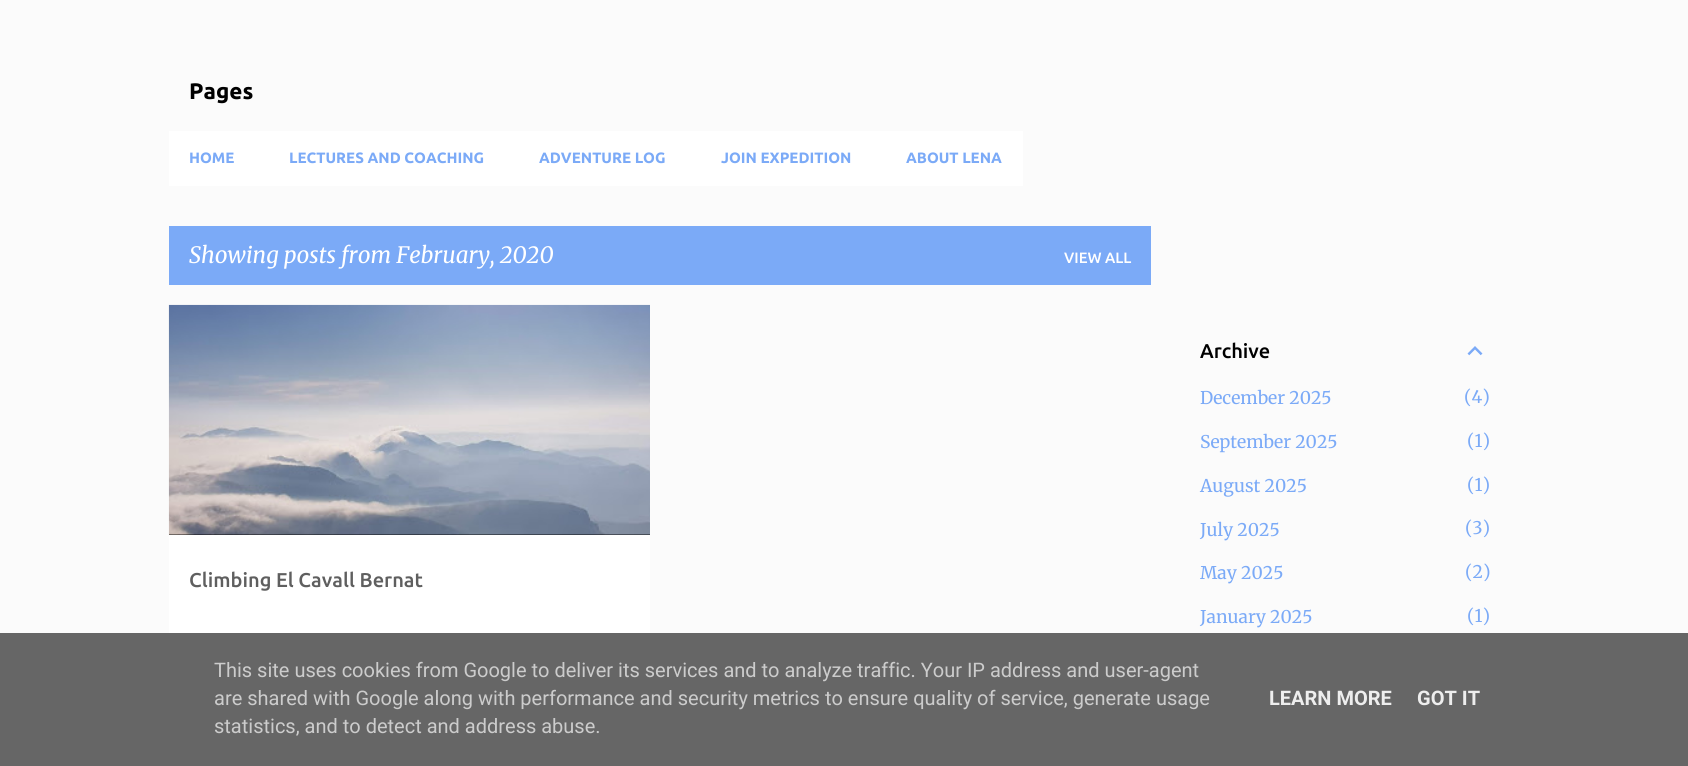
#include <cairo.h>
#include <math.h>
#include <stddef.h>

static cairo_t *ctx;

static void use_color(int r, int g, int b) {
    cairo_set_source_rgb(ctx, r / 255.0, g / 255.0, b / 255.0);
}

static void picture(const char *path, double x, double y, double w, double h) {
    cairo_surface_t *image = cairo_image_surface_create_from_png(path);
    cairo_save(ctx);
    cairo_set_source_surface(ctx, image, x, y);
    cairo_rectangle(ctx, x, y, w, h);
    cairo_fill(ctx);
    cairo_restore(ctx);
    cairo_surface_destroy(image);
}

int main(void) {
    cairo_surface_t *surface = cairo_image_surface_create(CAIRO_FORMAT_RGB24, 1688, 766);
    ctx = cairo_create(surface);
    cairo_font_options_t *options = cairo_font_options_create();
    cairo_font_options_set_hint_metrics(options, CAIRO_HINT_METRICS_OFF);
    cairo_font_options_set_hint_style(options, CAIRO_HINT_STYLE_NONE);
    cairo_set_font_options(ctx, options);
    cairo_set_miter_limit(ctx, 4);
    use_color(251, 251, 251);
    cairo_paint(ctx);
    cairo_select_font_face(ctx, "Ubuntu", CAIRO_FONT_SLANT_NORMAL, CAIRO_FONT_WEIGHT_BOLD);
    cairo_set_font_size(ctx, 22.5);
    use_color(0, 0, 0);
    cairo_move_to(ctx, 189, 99);
    cairo_show_text(ctx, "Pages");
    use_color(255, 255, 255);
    cairo_rectangle(ctx, 169, 131, 854, 55);
    cairo_fill(ctx);
    cairo_set_font_size(ctx, 15);
    use_color(123, 170, 247);
    cairo_move_to(ctx, 189, 163);
    cairo_show_text(ctx, "HOME");
    cairo_move_to(ctx, 289, 163);
    cairo_show_text(ctx, "LECTURES AND COACHING");
    cairo_move_to(ctx, 539, 163);
    cairo_show_text(ctx, "ADVENTURE LOG");
    cairo_move_to(ctx, 721, 163);
    cairo_show_text(ctx, "JOIN EXPEDITION");
    cairo_move_to(ctx, 906, 163);
    cairo_show_text(ctx, "ABOUT LENA");
    cairo_rectangle(ctx, 169, 226, 982, 59);
    cairo_fill(ctx);
    cairo_select_font_face(ctx, "Merriweather", CAIRO_FONT_SLANT_ITALIC, CAIRO_FONT_WEIGHT_NORMAL);
    cairo_set_font_size(ctx, 22.5);
    use_color(255, 255, 255);
    cairo_move_to(ctx, 189, 263);
    cairo_show_text(ctx, "Showing posts from February, 2020");
    cairo_select_font_face(ctx, "Ubuntu Medium", CAIRO_FONT_SLANT_NORMAL, CAIRO_FONT_WEIGHT_NORMAL);
    cairo_set_font_size(ctx, 15);
    cairo_move_to(ctx, 1064, 263);
    cairo_show_text(ctx, "VIEW ALL");
    cairo_rectangle(ctx, 169, 535, 481, 98);
    cairo_fill(ctx);
    use_color(0, 0, 0);
    cairo_rectangle(ctx, 169, 534, 481, 1);
    cairo_fill(ctx);
    picture("img1.png", 168, 304, 482, 231);
    cairo_set_font_size(ctx, 20);
    use_color(95, 95, 95);
    cairo_move_to(ctx, 189, 587);
    cairo_show_text(ctx, "Climbing El Cavall Bernat");
    use_color(0, 0, 0);
    cairo_move_to(ctx, 1200, 358);
    cairo_show_text(ctx, "Archive");
    picture("img2.png", 1467, 346, 16, 10);
    cairo_select_font_face(ctx, "Merriweather Light", CAIRO_FONT_SLANT_NORMAL, CAIRO_FONT_WEIGHT_NORMAL);
    cairo_set_font_size(ctx, 17.5);
    use_color(123, 170, 247);
    cairo_move_to(ctx, 1200, 404);
    cairo_show_text(ctx, "December 2025");
    cairo_move_to(ctx, 1464, 403);
    cairo_show_text(ctx, "(4)");
    cairo_move_to(ctx, 1200, 448);
    cairo_show_text(ctx, "September 2025");
    cairo_move_to(ctx, 1467, 447);
    cairo_show_text(ctx, "(1)");
    cairo_move_to(ctx, 1200, 492);
    cairo_show_text(ctx, "August 2025");
    cairo_move_to(ctx, 1467, 491);
    cairo_show_text(ctx, "(1)");
    cairo_move_to(ctx, 1200, 536);
    cairo_show_text(ctx, "July 2025");
    cairo_move_to(ctx, 1465, 534);
    cairo_show_text(ctx, "(3)");
    cairo_move_to(ctx, 1200, 579);
    cairo_show_text(ctx, "May 2025");
    cairo_move_to(ctx, 1465, 578);
    cairo_show_text(ctx, "(2)");
    cairo_move_to(ctx, 1200, 623);
    cairo_show_text(ctx, "January 2025");
    cairo_move_to(ctx, 1467, 622);
    cairo_show_text(ctx, "(1)");
    use_color(102, 102, 102);
    cairo_rectangle(ctx, 0, 633, 1688, 133);
    cairo_fill(ctx);
    cairo_select_font_face(ctx, "Roboto", CAIRO_FONT_SLANT_NORMAL, CAIRO_FONT_WEIGHT_NORMAL);
    cairo_set_font_size(ctx, 20);
    use_color(204, 204, 204);
    cairo_move_to(ctx, 214, 677);
    cairo_show_text(ctx, "This site uses cookies from Google to deliver its services and to analyze traffic. Your IP address and user-agent");
    cairo_move_to(ctx, 214, 705);
    cairo_show_text(ctx, "are shared with Google along with performance and security metrics to ensure quality of service, generate usage");
    cairo_move_to(ctx, 214, 733);
    cairo_show_text(ctx, "statistics, and to detect and address abuse.");
    cairo_select_font_face(ctx, "Roboto", CAIRO_FONT_SLANT_NORMAL, CAIRO_FONT_WEIGHT_BOLD);
    use_color(238, 238, 238);
    cairo_move_to(ctx, 1269, 705);
    cairo_show_text(ctx, "LEARN MORE");
    cairo_move_to(ctx, 1417, 705);
    cairo_show_text(ctx, "GOT IT");
    cairo_surface_write_to_png(surface, "result.png");
    cairo_font_options_destroy(options);
    cairo_destroy(ctx);
    cairo_surface_destroy(surface);
    return 0;
}
